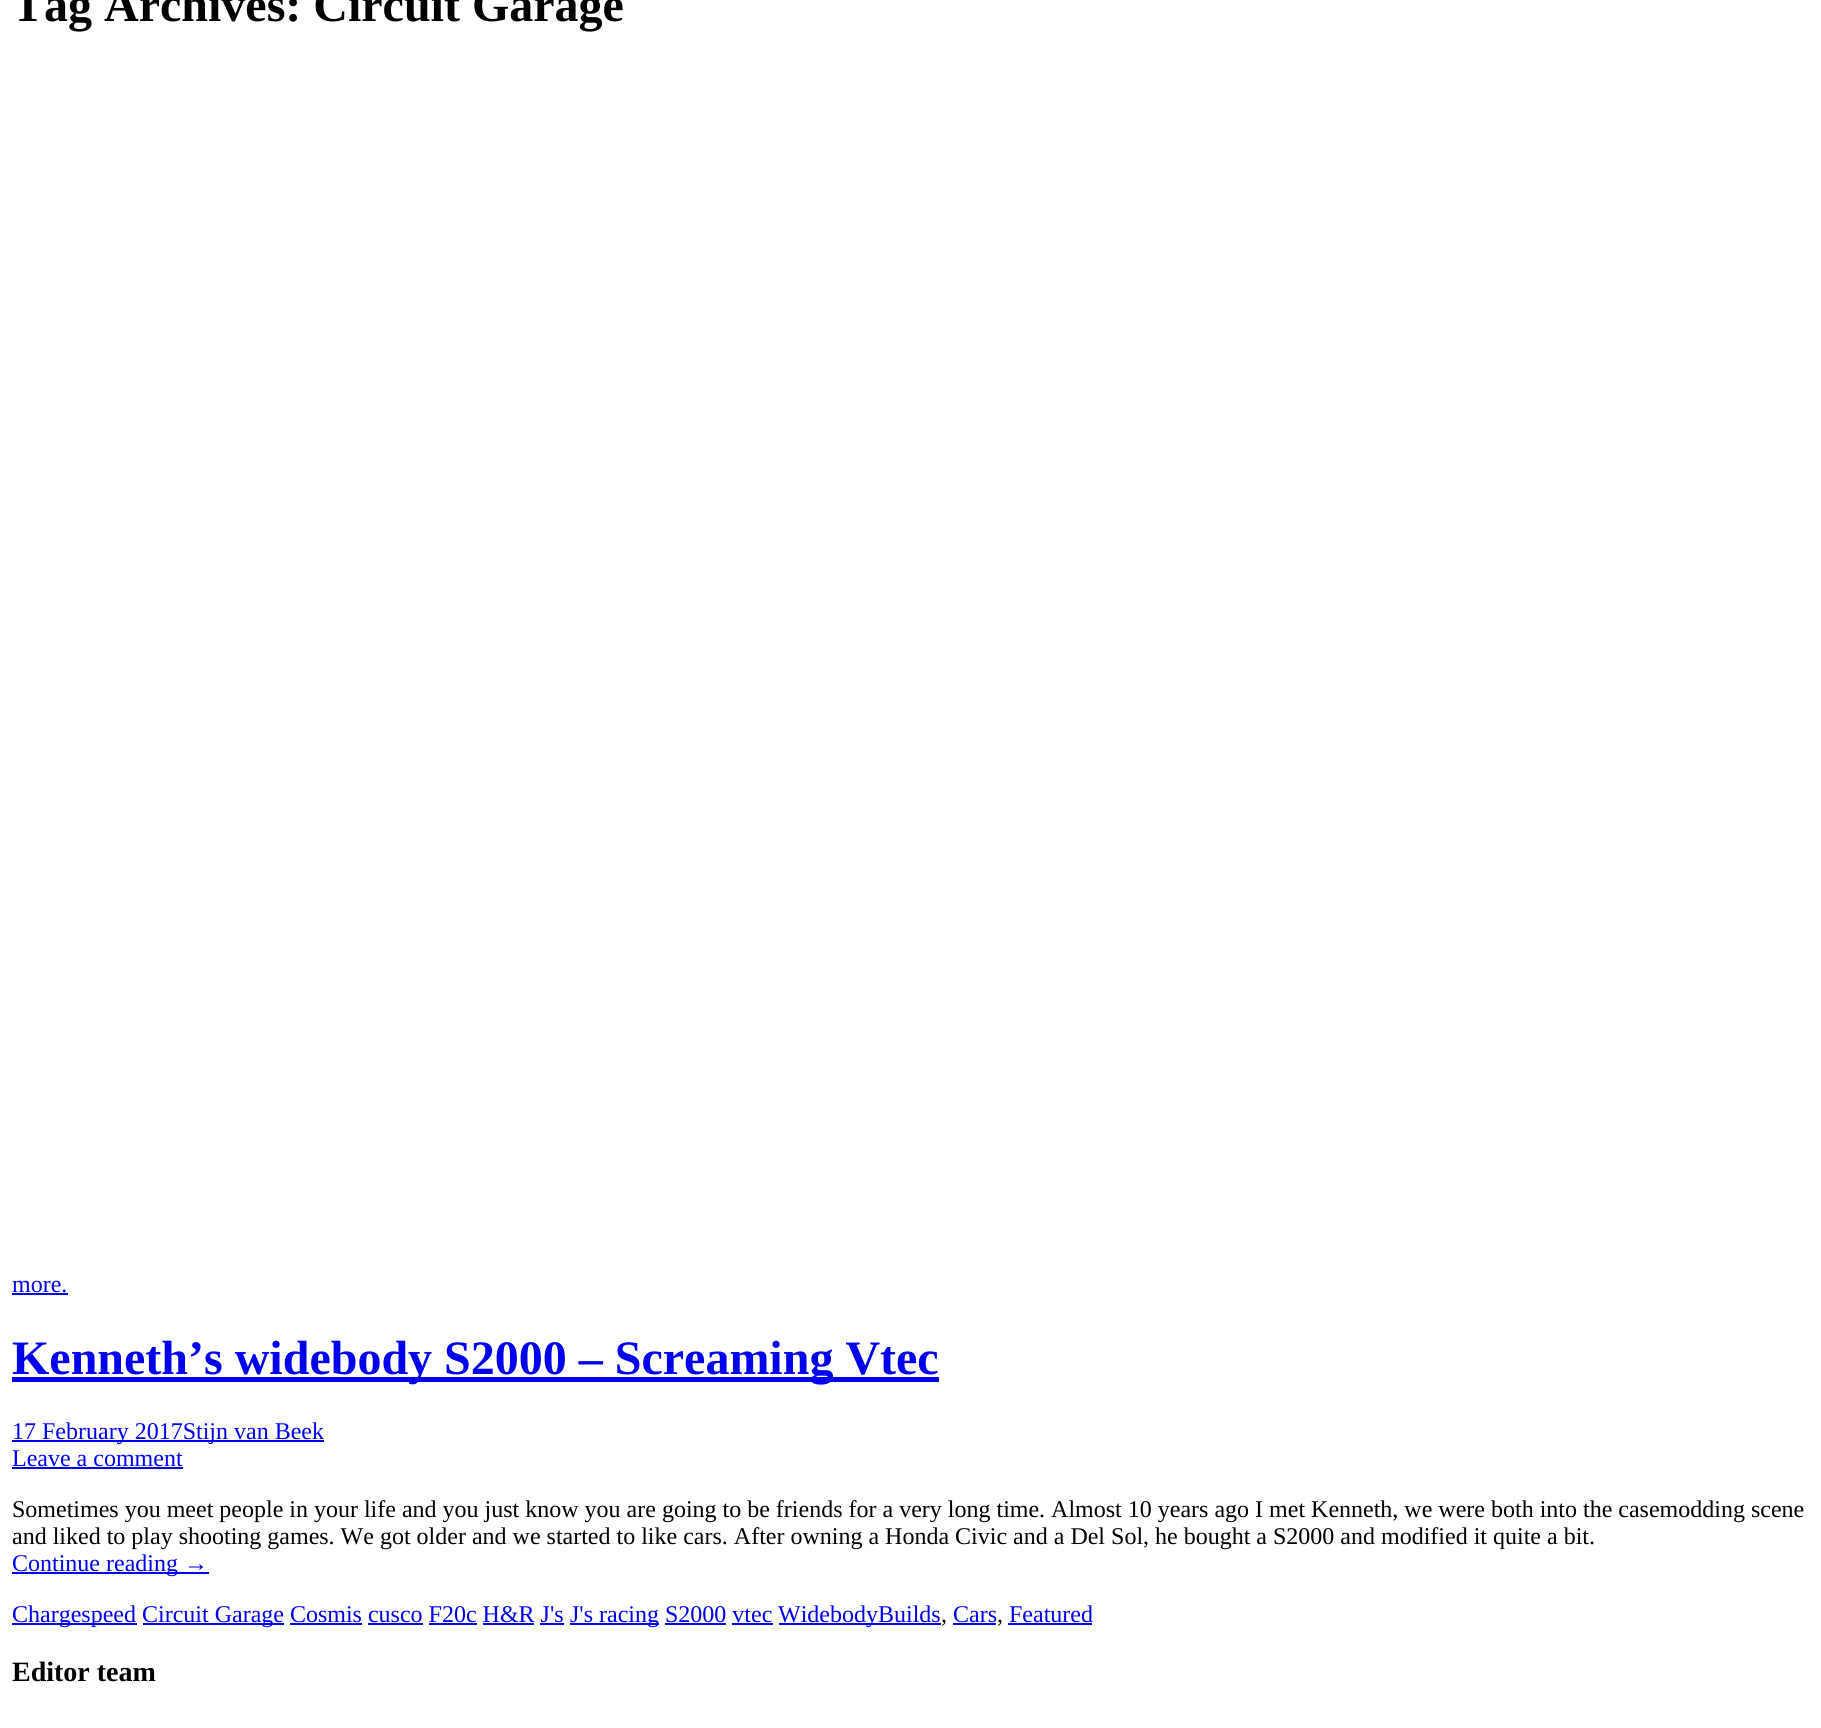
#include <cairo.h>
#include <math.h>
#include <stddef.h>

static cairo_t *ctx;

static void use_color(int r, int g, int b) {
    cairo_set_source_rgb(ctx, r / 255.0, g / 255.0, b / 255.0);
}

int main(void) {
    cairo_surface_t *surface = cairo_image_surface_create(CAIRO_FORMAT_RGB24, 1821, 1728);
    ctx = cairo_create(surface);
    cairo_font_options_t *options = cairo_font_options_create();
    cairo_font_options_set_hint_metrics(options, CAIRO_HINT_METRICS_OFF);
    cairo_font_options_set_hint_style(options, CAIRO_HINT_STYLE_NONE);
    cairo_set_font_options(ctx, options);
    cairo_set_miter_limit(ctx, 4);
    use_color(255, 255, 255);
    cairo_paint(ctx);
    cairo_select_font_face(ctx, "Liberation Serif", CAIRO_FONT_SLANT_NORMAL, CAIRO_FONT_WEIGHT_BOLD);
    cairo_set_font_size(ctx, 48);
    use_color(0, 0, 0);
    cairo_move_to(ctx, 12, 21);
    cairo_show_text(ctx, "Tag Archives: Circuit Garage");
    cairo_select_font_face(ctx, "Liberation Serif", CAIRO_FONT_SLANT_NORMAL, CAIRO_FONT_WEIGHT_NORMAL);
    cairo_set_font_size(ctx, 24);
    use_color(0, 0, 238);
    cairo_move_to(ctx, 12, 1292);
    cairo_show_text(ctx, "more.");
    cairo_rectangle(ctx, 12, 1293, 56, 2);
    cairo_fill(ctx);
    cairo_rectangle(ctx, 12, 1377, 927, 5);
    cairo_fill(ctx);
    cairo_select_font_face(ctx, "Liberation Serif", CAIRO_FONT_SLANT_NORMAL, CAIRO_FONT_WEIGHT_BOLD);
    cairo_set_font_size(ctx, 48);
    cairo_move_to(ctx, 12, 1374);
    cairo_show_text(ctx, "Kenneth’s widebody S2000 – Screaming Vtec");
    cairo_rectangle(ctx, 12, 1440, 312, 2);
    cairo_fill(ctx);
    cairo_select_font_face(ctx, "Liberation Serif", CAIRO_FONT_SLANT_NORMAL, CAIRO_FONT_WEIGHT_NORMAL);
    cairo_set_font_size(ctx, 24);
    cairo_move_to(ctx, 12, 1439);
    cairo_show_text(ctx, "17 February 2017Stijn van Beek");
    cairo_move_to(ctx, 12, 1466);
    cairo_show_text(ctx, "Leave a comment");
    cairo_rectangle(ctx, 12, 1467, 171, 2);
    cairo_fill(ctx);
    use_color(0, 0, 0);
    cairo_move_to(ctx, 12, 1517);
    cairo_show_text(ctx, "Sometimes you meet people in your life and you just know you are going to be friends for a very long time. Almost 10 years ago I met Kenneth, we were both into the casemodding scene");
    cairo_move_to(ctx, 12, 1544);
    cairo_show_text(ctx, "and liked to play shooting games. We got older and we started to like cars. After owning a Honda Civic and a Del Sol, he bought a S2000 and modified it quite a bit.");
    use_color(0, 0, 238);
    cairo_rectangle(ctx, 12, 1572, 197, 2);
    cairo_fill(ctx);
    cairo_move_to(ctx, 12, 1571);
    cairo_show_text(ctx, "Continue reading →");
    cairo_rectangle(ctx, 12, 1623, 125, 2);
    cairo_fill(ctx);
    cairo_move_to(ctx, 12, 1622);
    cairo_show_text(ctx, "Chargespeed");
    cairo_rectangle(ctx, 143, 1623, 141, 2);
    cairo_fill(ctx);
    cairo_move_to(ctx, 142, 1622);
    cairo_show_text(ctx, "Circuit Garage Cosmis cusco F20c H&R J's");
    cairo_rectangle(ctx, 290, 1623, 72, 2);
    cairo_fill(ctx);
    cairo_rectangle(ctx, 368, 1623, 55, 2);
    cairo_fill(ctx);
    cairo_rectangle(ctx, 429, 1623, 48, 2);
    cairo_fill(ctx);
    cairo_rectangle(ctx, 483, 1623, 51, 2);
    cairo_fill(ctx);
    cairo_rectangle(ctx, 540, 1623, 24, 2);
    cairo_fill(ctx);
    cairo_rectangle(ctx, 570, 1623, 89, 2);
    cairo_fill(ctx);
    cairo_move_to(ctx, 570, 1622);
    cairo_show_text(ctx, "J's racing S2000 vtec");
    cairo_rectangle(ctx, 665, 1623, 61, 2);
    cairo_fill(ctx);
    cairo_rectangle(ctx, 732, 1623, 41, 2);
    cairo_fill(ctx);
    cairo_rectangle(ctx, 779, 1623, 162, 2);
    cairo_fill(ctx);
    cairo_move_to(ctx, 778, 1622);
    cairo_show_text(ctx, "WidebodyBuilds");
    use_color(0, 0, 0);
    cairo_move_to(ctx, 941, 1622);
    cairo_show_text(ctx, ",");
    use_color(0, 0, 238);
    cairo_move_to(ctx, 953, 1622);
    cairo_show_text(ctx, "Cars");
    use_color(0, 0, 0);
    cairo_move_to(ctx, 997, 1622);
    cairo_show_text(ctx, ",");
    use_color(0, 0, 238);
    cairo_rectangle(ctx, 953, 1623, 43, 2);
    cairo_fill(ctx);
    cairo_rectangle(ctx, 1008, 1623, 84, 2);
    cairo_fill(ctx);
    cairo_move_to(ctx, 1009, 1622);
    cairo_show_text(ctx, "Featured");
    cairo_select_font_face(ctx, "Liberation Serif", CAIRO_FONT_SLANT_NORMAL, CAIRO_FONT_WEIGHT_BOLD);
    cairo_set_font_size(ctx, 28);
    use_color(0, 0, 0);
    cairo_move_to(ctx, 12, 1681);
    cairo_show_text(ctx, "Editor team");
    cairo_surface_write_to_png(surface, "result.png");
    cairo_font_options_destroy(options);
    cairo_destroy(ctx);
    cairo_surface_destroy(surface);
    return 0;
}
